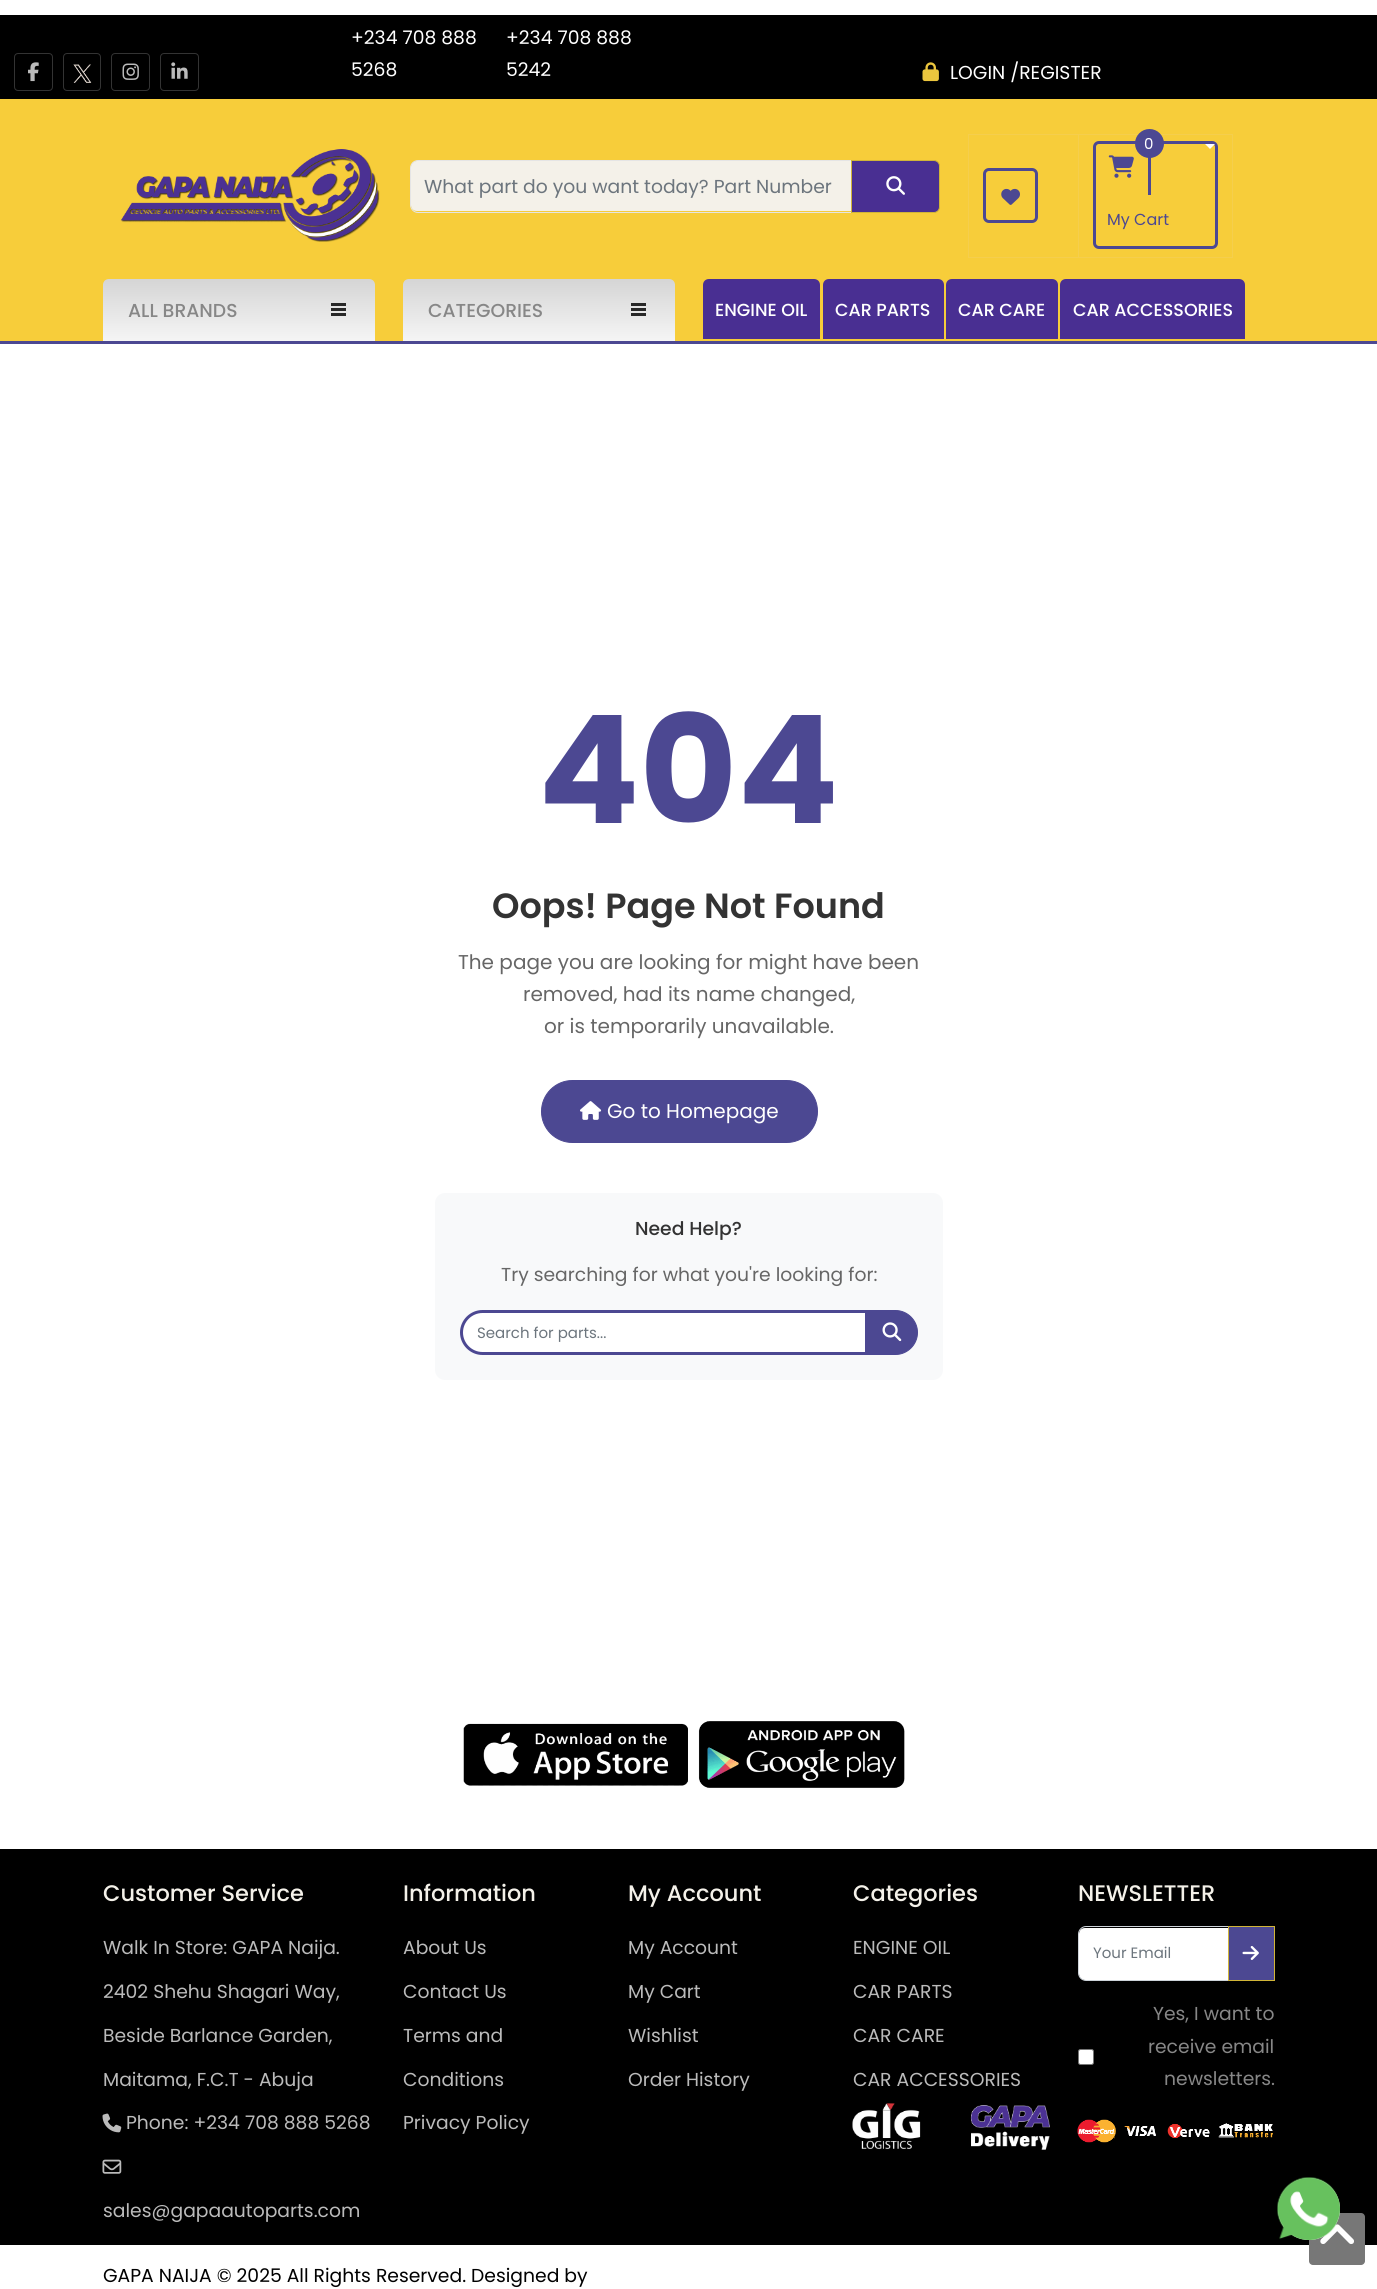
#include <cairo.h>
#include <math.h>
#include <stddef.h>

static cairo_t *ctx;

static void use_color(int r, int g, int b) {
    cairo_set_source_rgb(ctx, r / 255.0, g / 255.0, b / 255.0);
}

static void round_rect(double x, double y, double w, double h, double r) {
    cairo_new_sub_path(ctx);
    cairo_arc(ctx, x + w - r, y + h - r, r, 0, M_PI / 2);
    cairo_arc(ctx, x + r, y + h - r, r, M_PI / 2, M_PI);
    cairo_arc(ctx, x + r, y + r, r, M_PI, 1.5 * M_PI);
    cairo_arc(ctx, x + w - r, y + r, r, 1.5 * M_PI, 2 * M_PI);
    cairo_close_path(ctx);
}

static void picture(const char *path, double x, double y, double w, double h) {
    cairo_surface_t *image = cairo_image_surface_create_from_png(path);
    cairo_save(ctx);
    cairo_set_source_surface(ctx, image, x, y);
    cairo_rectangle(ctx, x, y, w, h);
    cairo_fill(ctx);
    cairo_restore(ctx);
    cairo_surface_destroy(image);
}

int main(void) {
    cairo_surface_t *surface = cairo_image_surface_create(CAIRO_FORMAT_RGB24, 1377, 2289);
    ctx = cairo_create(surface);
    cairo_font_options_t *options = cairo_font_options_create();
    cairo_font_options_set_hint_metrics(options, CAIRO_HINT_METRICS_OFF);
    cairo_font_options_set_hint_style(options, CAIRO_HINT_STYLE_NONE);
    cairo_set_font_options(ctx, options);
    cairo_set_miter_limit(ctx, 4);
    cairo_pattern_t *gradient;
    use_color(255, 255, 255);
    cairo_paint(ctx);
    use_color(247, 205, 58);
    cairo_rectangle(ctx, 0, 99, 1377, 242);
    cairo_fill(ctx);
    use_color(0, 0, 0);
    cairo_rectangle(ctx, 0, 15, 1377, 84);
    cairo_fill(ctx);
    round_rect(14.5, 53.5, 38, 37, 3.5);
    use_color(51, 51, 51);
    cairo_set_line_width(ctx, 1);
    cairo_stroke(ctx);
    picture("img1.png", 28, 62, 11, 20);
    round_rect(63.5, 53.5, 37, 37, 3.5);
    cairo_stroke(ctx);
    picture("img2.png", 73, 64, 19, 19);
    round_rect(111.5, 53.5, 38, 37, 3.5);
    cairo_stroke(ctx);
    picture("img3.png", 122, 63, 17, 17);
    round_rect(160.5, 53.5, 38, 37, 3.5);
    cairo_stroke(ctx);
    picture("img4.png", 171, 62, 17, 17);
    cairo_select_font_face(ctx, "Poppins", CAIRO_FONT_SLANT_NORMAL, CAIRO_FONT_WEIGHT_NORMAL);
    cairo_set_font_size(ctx, 18.75);
    use_color(255, 255, 255);
    cairo_move_to(ctx, 351, 44);
    cairo_show_text(ctx, "+234 708 888");
    cairo_move_to(ctx, 351, 76);
    cairo_show_text(ctx, "5268");
    cairo_move_to(ctx, 506, 44);
    cairo_show_text(ctx, "+234 708 888");
    cairo_move_to(ctx, 506, 76);
    cairo_show_text(ctx, "5242");
    picture("img5.png", 922, 62, 17, 20);
    cairo_move_to(ctx, 950, 79);
    cairo_show_text(ctx, "LOGIN /REGISTER");
    picture("img6.png", 120, 149, 260, 93);
    use_color(244, 241, 233);
    cairo_new_path(ctx);
    cairo_move_to(ctx, 417, 161);
    cairo_line_to(ctx, 851, 161);
    cairo_line_to(ctx, 851, 211);
    cairo_line_to(ctx, 417, 211);
    cairo_curve_to(ctx, 413.5, 211, 411, 208.5, 411, 205);
    cairo_line_to(ctx, 411, 167);
    cairo_curve_to(ctx, 411, 163.5, 413.5, 161, 417, 161);
    cairo_close_path(ctx);
    cairo_fill(ctx);
    cairo_new_path(ctx);
    cairo_move_to(ctx, 418, 160.5);
    cairo_line_to(ctx, 852.5, 160.5);
    cairo_line_to(ctx, 852.5, 212.5);
    cairo_line_to(ctx, 418, 212.5);
    cairo_curve_to(ctx, 414, 212.5, 410.5, 209, 410.5, 205);
    cairo_line_to(ctx, 410.5, 168);
    cairo_curve_to(ctx, 410.5, 164, 414, 160.5, 418, 160.5);
    cairo_close_path(ctx);
    use_color(229, 229, 229);
    cairo_stroke(ctx);
    use_color(108, 117, 125);
    cairo_move_to(ctx, 424, 193);
    cairo_show_text(ctx, "What part do you want today? Part Number");
    use_color(73, 47, 146);
    cairo_new_path(ctx);
    cairo_move_to(ctx, 851.5, 160.5);
    cairo_line_to(ctx, 934, 160.5);
    cairo_curve_to(ctx, 937, 160.5, 939.5, 163, 939.5, 166);
    cairo_line_to(ctx, 939.5, 207);
    cairo_curve_to(ctx, 939.5, 210, 937, 212.5, 934, 212.5);
    cairo_line_to(ctx, 851.5, 212.5);
    cairo_close_path(ctx);
    cairo_fill_preserve(ctx);
    use_color(209, 181, 56);
    cairo_stroke(ctx);
    picture("img7.png", 886, 176, 19, 19);
    cairo_rectangle(ctx, 968.5, 134.5, 110, 123);
    use_color(245, 206, 77);
    cairo_stroke(ctx);
    round_rect(984.5, 169.5, 52, 52, 4.5);
    use_color(76, 72, 146);
    cairo_set_line_width(ctx, 3);
    cairo_stroke(ctx);
    picture("img8.png", 1001, 188, 19, 17);
    cairo_rectangle(ctx, 1078.5, 134.5, 154, 123);
    use_color(245, 206, 77);
    cairo_set_line_width(ctx, 1);
    cairo_stroke(ctx);
    round_rect(1094.5, 142.5, 122, 105, 4.5);
    use_color(76, 72, 146);
    cairo_set_line_width(ctx, 3);
    cairo_stroke(ctx);
    cairo_rectangle(ctx, 1148, 157, 3, 38);
    cairo_fill(ctx);
    cairo_arc(ctx, 1149.5, 143.5, 14.5, 0, 2 * M_PI);
    cairo_fill(ctx);
    cairo_set_font_size(ctx, 15);
    use_color(255, 255, 255);
    cairo_move_to(ctx, 1144, 149);
    cairo_show_text(ctx, "0");
    cairo_set_font_size(ctx, 16);
    use_color(76, 72, 146);
    cairo_move_to(ctx, 1107, 225);
    cairo_show_text(ctx, "My Cart");
    picture("img9.png", 1108, 155, 26, 23);
    use_color(255, 255, 255);
    cairo_new_path(ctx);
    cairo_move_to(ctx, 1205, 144);
    cairo_line_to(ctx, 1215, 144);
    cairo_line_to(ctx, 1210, 149);
    cairo_close_path(ctx);
    cairo_fill(ctx);
    use_color(76, 72, 146);
    cairo_rectangle(ctx, 0, 341, 1377, 3);
    cairo_fill(ctx);
    gradient = cairo_pattern_create_linear(239, 341, 239, 279);
    cairo_pattern_add_color_stop_rgba(gradient, 0, 0.961, 0.961, 0.961, 1);
    cairo_pattern_add_color_stop_rgba(gradient, 1, 0.835, 0.835, 0.835, 1);
    cairo_set_source(ctx, gradient);
    cairo_pattern_destroy(gradient);
    cairo_new_path(ctx);
    cairo_move_to(ctx, 109, 279);
    cairo_line_to(ctx, 369, 279);
    cairo_curve_to(ctx, 372.5, 279, 375, 281.5, 375, 285);
    cairo_line_to(ctx, 375, 341);
    cairo_line_to(ctx, 103, 341);
    cairo_line_to(ctx, 103, 285);
    cairo_curve_to(ctx, 103, 281.5, 105.5, 279, 109, 279);
    cairo_close_path(ctx);
    cairo_fill(ctx);
    cairo_select_font_face(ctx, "Poppins Medium", CAIRO_FONT_SLANT_NORMAL, CAIRO_FONT_WEIGHT_NORMAL);
    cairo_set_font_size(ctx, 18.75);
    use_color(135, 135, 135);
    cairo_move_to(ctx, 128, 317);
    cairo_show_text(ctx, "ALL BRANDS");
    use_color(40, 40, 40);
    cairo_rectangle(ctx, 331, 303, 15, 3);
    cairo_fill(ctx);
    cairo_rectangle(ctx, 331, 308, 15, 3);
    cairo_fill(ctx);
    cairo_rectangle(ctx, 331, 313, 15, 3);
    cairo_fill(ctx);
    gradient = cairo_pattern_create_linear(539, 341, 539, 279);
    cairo_pattern_add_color_stop_rgba(gradient, 0, 0.961, 0.961, 0.961, 1);
    cairo_pattern_add_color_stop_rgba(gradient, 1, 0.835, 0.835, 0.835, 1);
    cairo_set_source(ctx, gradient);
    cairo_pattern_destroy(gradient);
    cairo_new_path(ctx);
    cairo_move_to(ctx, 409, 279);
    cairo_line_to(ctx, 669, 279);
    cairo_curve_to(ctx, 672.5, 279, 675, 281.5, 675, 285);
    cairo_line_to(ctx, 675, 341);
    cairo_line_to(ctx, 403, 341);
    cairo_line_to(ctx, 403, 285);
    cairo_curve_to(ctx, 403, 281.5, 405.5, 279, 409, 279);
    cairo_close_path(ctx);
    cairo_fill(ctx);
    use_color(135, 135, 135);
    cairo_move_to(ctx, 428, 317);
    cairo_show_text(ctx, "CATEGORIES");
    use_color(40, 40, 40);
    cairo_rectangle(ctx, 631, 303, 15, 3);
    cairo_fill(ctx);
    cairo_rectangle(ctx, 631, 308, 15, 3);
    cairo_fill(ctx);
    cairo_rectangle(ctx, 631, 313, 15, 3);
    cairo_fill(ctx);
    use_color(73, 47, 146);
    cairo_new_path(ctx);
    cairo_move_to(ctx, 709, 279);
    cairo_line_to(ctx, 814, 279);
    cairo_curve_to(ctx, 817.5, 279, 820, 281.5, 820, 285);
    cairo_line_to(ctx, 820, 339);
    cairo_line_to(ctx, 703, 339);
    cairo_line_to(ctx, 703, 285);
    cairo_curve_to(ctx, 703, 281.5, 705.5, 279, 709, 279);
    cairo_close_path(ctx);
    cairo_fill(ctx);
    cairo_set_font_size(ctx, 17.5);
    use_color(255, 255, 255);
    cairo_move_to(ctx, 715, 316);
    cairo_show_text(ctx, "ENGINE OIL");
    use_color(73, 47, 146);
    cairo_new_path(ctx);
    cairo_move_to(ctx, 829, 279);
    cairo_line_to(ctx, 938, 279);
    cairo_curve_to(ctx, 941.5, 279, 944, 281.5, 944, 285);
    cairo_line_to(ctx, 944, 339);
    cairo_line_to(ctx, 823, 339);
    cairo_line_to(ctx, 823, 285);
    cairo_curve_to(ctx, 823, 281.5, 825.5, 279, 829, 279);
    cairo_close_path(ctx);
    cairo_fill(ctx);
    use_color(255, 255, 255);
    cairo_move_to(ctx, 835, 316);
    cairo_show_text(ctx, "CAR PARTS");
    use_color(73, 47, 146);
    cairo_new_path(ctx);
    cairo_move_to(ctx, 952, 279);
    cairo_line_to(ctx, 1052, 279);
    cairo_curve_to(ctx, 1055.5, 279, 1058, 281.5, 1058, 285);
    cairo_line_to(ctx, 1058, 339);
    cairo_line_to(ctx, 946, 339);
    cairo_line_to(ctx, 946, 285);
    cairo_curve_to(ctx, 946, 281.5, 948.5, 279, 952, 279);
    cairo_close_path(ctx);
    cairo_fill(ctx);
    use_color(255, 255, 255);
    cairo_move_to(ctx, 958, 316);
    cairo_show_text(ctx, "CAR CARE");
    use_color(73, 47, 146);
    cairo_new_path(ctx);
    cairo_move_to(ctx, 1066, 279);
    cairo_line_to(ctx, 1239, 279);
    cairo_curve_to(ctx, 1242.5, 279, 1245, 281.5, 1245, 285);
    cairo_line_to(ctx, 1245, 339);
    cairo_line_to(ctx, 1060, 339);
    cairo_line_to(ctx, 1060, 285);
    cairo_curve_to(ctx, 1060, 281.5, 1062.5, 279, 1066, 279);
    cairo_close_path(ctx);
    cairo_fill(ctx);
    use_color(255, 255, 255);
    cairo_move_to(ctx, 1073, 316);
    cairo_show_text(ctx, "CAR ACCESSORIES");
    cairo_select_font_face(ctx, "Poppins", CAIRO_FONT_SLANT_NORMAL, CAIRO_FONT_WEIGHT_BOLD);
    cairo_set_font_size(ctx, 150);
    use_color(76, 72, 146);
    cairo_move_to(ctx, 538, 823);
    cairo_show_text(ctx, "404");
    cairo_select_font_face(ctx, "Poppins SemiBold", CAIRO_FONT_SLANT_NORMAL, CAIRO_FONT_WEIGHT_NORMAL);
    cairo_set_font_size(ctx, 35);
    use_color(51, 51, 51);
    cairo_move_to(ctx, 492, 918);
    cairo_show_text(ctx, "Oops! Page Not Found");
    cairo_select_font_face(ctx, "Poppins", CAIRO_FONT_SLANT_NORMAL, CAIRO_FONT_WEIGHT_NORMAL);
    cairo_set_font_size(ctx, 20);
    use_color(102, 102, 102);
    cairo_move_to(ctx, 458, 969);
    cairo_show_text(ctx, "The page you are looking for might have been");
    cairo_move_to(ctx, 523, 1001);
    cairo_show_text(ctx, "removed, had its name changed,");
    cairo_move_to(ctx, 544, 1033);
    cairo_show_text(ctx, "or is temporarily unavailable.");
    use_color(76, 72, 146);
    round_rect(541.5, 1080.5, 276, 62, 31);
    cairo_fill_preserve(ctx);
    cairo_set_line_width(ctx, 1);
    cairo_stroke(ctx);
    picture("img10.png", 580, 1101, 22, 19);
    use_color(255, 255, 255);
    cairo_move_to(ctx, 607, 1118);
    cairo_show_text(ctx, "Go to Homepage");
    use_color(248, 249, 250);
    round_rect(435, 1193, 508, 187, 10);
    cairo_fill(ctx);
    cairo_select_font_face(ctx, "Poppins Medium", CAIRO_FONT_SLANT_NORMAL, CAIRO_FONT_WEIGHT_NORMAL);
    cairo_set_font_size(ctx, 18.75);
    use_color(51, 51, 51);
    cairo_move_to(ctx, 635, 1235);
    cairo_show_text(ctx, "Need Help?");
    cairo_select_font_face(ctx, "Poppins", CAIRO_FONT_SLANT_NORMAL, CAIRO_FONT_WEIGHT_NORMAL);
    use_color(102, 102, 102);
    cairo_move_to(ctx, 501, 1281);
    cairo_show_text(ctx, "Try searching for what you're looking for:");
    use_color(255, 255, 255);
    cairo_new_path(ctx);
    cairo_move_to(ctx, 482.5, 1311.5);
    cairo_line_to(ctx, 866.5, 1311.5);
    cairo_line_to(ctx, 866.5, 1353.5);
    cairo_line_to(ctx, 482.5, 1353.5);
    cairo_curve_to(ctx, 471, 1353.5, 461.5, 1344, 461.5, 1332.5);
    cairo_curve_to(ctx, 461.5, 1321, 471, 1311.5, 482.5, 1311.5);
    cairo_close_path(ctx);
    cairo_fill_preserve(ctx);
    use_color(76, 72, 146);
    cairo_set_line_width(ctx, 3);
    cairo_stroke(ctx);
    cairo_set_font_size(ctx, 15);
    use_color(108, 117, 125);
    cairo_move_to(ctx, 477, 1338);
    cairo_show_text(ctx, "Search for parts...");
    use_color(76, 72, 146);
    cairo_new_path(ctx);
    cairo_move_to(ctx, 868.5, 1310.5);
    cairo_line_to(ctx, 895.5, 1310.5);
    cairo_curve_to(ctx, 907.5, 1310.5, 917.5, 1320.5, 917.5, 1332.5);
    cairo_curve_to(ctx, 917.5, 1344.5, 907.5, 1354.5, 895.5, 1354.5);
    cairo_line_to(ctx, 868.5, 1354.5);
    cairo_close_path(ctx);
    cairo_fill_preserve(ctx);
    cairo_set_line_width(ctx, 1);
    cairo_stroke(ctx);
    picture("img11.png", 882, 1322, 20, 20);
    picture("img12.png", 463, 1723, 225, 63);
    picture("img13.png", 698, 1721, 207, 67);
    use_color(0, 0, 0);
    cairo_rectangle(ctx, 0, 1849, 1377, 396);
    cairo_fill(ctx);
    cairo_select_font_face(ctx, "Poppins Medium", CAIRO_FONT_SLANT_NORMAL, CAIRO_FONT_WEIGHT_NORMAL);
    cairo_set_font_size(ctx, 22.5);
    use_color(244, 241, 233);
    cairo_move_to(ctx, 103, 1901);
    cairo_show_text(ctx, "Customer Service");
    cairo_select_font_face(ctx, "Poppins", CAIRO_FONT_SLANT_NORMAL, CAIRO_FONT_WEIGHT_NORMAL);
    cairo_set_font_size(ctx, 18.75);
    use_color(187, 187, 187);
    cairo_move_to(ctx, 103, 1954);
    cairo_show_text(ctx, "Walk In Store: GAPA Naija.");
    cairo_move_to(ctx, 103, 1998);
    cairo_show_text(ctx, "2402 Shehu Shagari Way,");
    cairo_move_to(ctx, 103, 2042);
    cairo_show_text(ctx, "Beside Barlance Garden,");
    cairo_move_to(ctx, 103, 2086);
    cairo_show_text(ctx, "Maitama, F.C.T - Abuja");
    picture("img14.png", 102, 2113, 20, 20);
    cairo_move_to(ctx, 126, 2129);
    cairo_show_text(ctx, "Phone: +234 708 888 5268");
    picture("img15.png", 102, 2159, 20, 15);
    cairo_move_to(ctx, 103, 2217);
    cairo_show_text(ctx, "sales@gapaautoparts.com");
    cairo_select_font_face(ctx, "Poppins Medium", CAIRO_FONT_SLANT_NORMAL, CAIRO_FONT_WEIGHT_NORMAL);
    cairo_set_font_size(ctx, 22.5);
    use_color(244, 241, 233);
    cairo_move_to(ctx, 403, 1901);
    cairo_show_text(ctx, "Information");
    cairo_select_font_face(ctx, "Poppins", CAIRO_FONT_SLANT_NORMAL, CAIRO_FONT_WEIGHT_NORMAL);
    cairo_set_font_size(ctx, 18.75);
    use_color(187, 187, 187);
    cairo_move_to(ctx, 403, 1954);
    cairo_show_text(ctx, "About Us");
    cairo_move_to(ctx, 403, 1998);
    cairo_show_text(ctx, "Contact Us");
    cairo_move_to(ctx, 403, 2042);
    cairo_show_text(ctx, "Terms and");
    cairo_move_to(ctx, 403, 2086);
    cairo_show_text(ctx, "Conditions");
    cairo_move_to(ctx, 403, 2129);
    cairo_show_text(ctx, "Privacy Policy");
    cairo_select_font_face(ctx, "Poppins Medium", CAIRO_FONT_SLANT_NORMAL, CAIRO_FONT_WEIGHT_NORMAL);
    cairo_set_font_size(ctx, 22.5);
    use_color(244, 241, 233);
    cairo_move_to(ctx, 628, 1901);
    cairo_show_text(ctx, "My Account");
    cairo_select_font_face(ctx, "Poppins", CAIRO_FONT_SLANT_NORMAL, CAIRO_FONT_WEIGHT_NORMAL);
    cairo_set_font_size(ctx, 18.75);
    use_color(187, 187, 187);
    cairo_move_to(ctx, 628, 1954);
    cairo_show_text(ctx, "My Account");
    cairo_move_to(ctx, 628, 1998);
    cairo_show_text(ctx, "My Cart");
    cairo_move_to(ctx, 628, 2042);
    cairo_show_text(ctx, "Wishlist");
    cairo_move_to(ctx, 628, 2086);
    cairo_show_text(ctx, "Order History");
    cairo_select_font_face(ctx, "Poppins Medium", CAIRO_FONT_SLANT_NORMAL, CAIRO_FONT_WEIGHT_NORMAL);
    cairo_set_font_size(ctx, 22.5);
    use_color(244, 241, 233);
    cairo_move_to(ctx, 853, 1901);
    cairo_show_text(ctx, "Categories");
    cairo_select_font_face(ctx, "Poppins", CAIRO_FONT_SLANT_NORMAL, CAIRO_FONT_WEIGHT_NORMAL);
    cairo_set_font_size(ctx, 18.75);
    use_color(187, 187, 187);
    cairo_move_to(ctx, 853, 1954);
    cairo_show_text(ctx, "ENGINE OIL");
    cairo_move_to(ctx, 853, 1998);
    cairo_show_text(ctx, "CAR PARTS");
    cairo_move_to(ctx, 853, 2042);
    cairo_show_text(ctx, "CAR CARE");
    cairo_move_to(ctx, 853, 2086);
    cairo_show_text(ctx, "CAR ACCESSORIES");
    picture("img16.png", 852, 2103, 198, 47);
    cairo_select_font_face(ctx, "Poppins Medium", CAIRO_FONT_SLANT_NORMAL, CAIRO_FONT_WEIGHT_NORMAL);
    cairo_set_font_size(ctx, 22.5);
    use_color(244, 241, 233);
    cairo_move_to(ctx, 1078, 1901);
    cairo_show_text(ctx, "NEWSLETTER");
    use_color(255, 255, 255);
    cairo_new_path(ctx);
    cairo_move_to(ctx, 1085, 1928);
    cairo_line_to(ctx, 1228, 1928);
    cairo_line_to(ctx, 1228, 1980);
    cairo_line_to(ctx, 1085, 1980);
    cairo_curve_to(ctx, 1081.5, 1980, 1079, 1977.5, 1079, 1974);
    cairo_line_to(ctx, 1079, 1934);
    cairo_curve_to(ctx, 1079, 1930.5, 1081.5, 1928, 1085, 1928);
    cairo_close_path(ctx);
    cairo_fill(ctx);
    cairo_new_path(ctx);
    cairo_move_to(ctx, 1086, 1926.5);
    cairo_line_to(ctx, 1228.5, 1926.5);
    cairo_line_to(ctx, 1228.5, 1980.5);
    cairo_line_to(ctx, 1086, 1980.5);
    cairo_curve_to(ctx, 1082, 1980.5, 1078.5, 1977, 1078.5, 1973);
    cairo_line_to(ctx, 1078.5, 1934);
    cairo_curve_to(ctx, 1078.5, 1930, 1082, 1926.5, 1086, 1926.5);
    cairo_close_path(ctx);
    use_color(206, 212, 218);
    cairo_stroke(ctx);
    cairo_select_font_face(ctx, "Poppins", CAIRO_FONT_SLANT_NORMAL, CAIRO_FONT_WEIGHT_NORMAL);
    cairo_set_font_size(ctx, 15);
    use_color(108, 117, 125);
    cairo_move_to(ctx, 1093, 1958);
    cairo_show_text(ctx, "Your Email");
    use_color(76, 72, 146);
    cairo_rectangle(ctx, 1228.5, 1926.5, 46, 54);
    cairo_fill_preserve(ctx);
    use_color(209, 181, 56);
    cairo_stroke(ctx);
    picture("img17.png", 1242, 1946, 17, 14);
    use_color(255, 255, 255);
    round_rect(1078.5, 2049.5, 15, 15, 2);
    cairo_fill_preserve(ctx);
    use_color(118, 118, 118);
    cairo_stroke(ctx);
    cairo_set_font_size(ctx, 18.75);
    use_color(135, 135, 135);
    cairo_move_to(ctx, 1153, 2020);
    cairo_show_text(ctx, "Yes, I want to");
    cairo_move_to(ctx, 1148, 2053);
    cairo_show_text(ctx, "receive email");
    cairo_move_to(ctx, 1164, 2085);
    cairo_show_text(ctx, "newsletters.");
    picture("img18.png", 1077, 2119, 196, 24);
    use_color(119, 119, 119);
    round_rect(1309, 2213, 56, 52, 4);
    cairo_fill(ctx);
    picture("img19.png", 1320, 2224, 34, 20);
    use_color(0, 0, 0);
    cairo_move_to(ctx, 103, 2282);
    cairo_show_text(ctx, "GAPA NAIJA © 2025 All Rights Reserved. Designed by");
    use_color(255, 255, 255);
    cairo_new_path(ctx);
    cairo_arc(ctx, 1309, 2209, 31, 0, 2 * M_PI);
    cairo_fill(ctx);
    picture("img20.png", 1277, 2177, 63, 63);
    cairo_surface_write_to_png(surface, "result.png");
    cairo_font_options_destroy(options);
    cairo_destroy(ctx);
    cairo_surface_destroy(surface);
    return 0;
}
